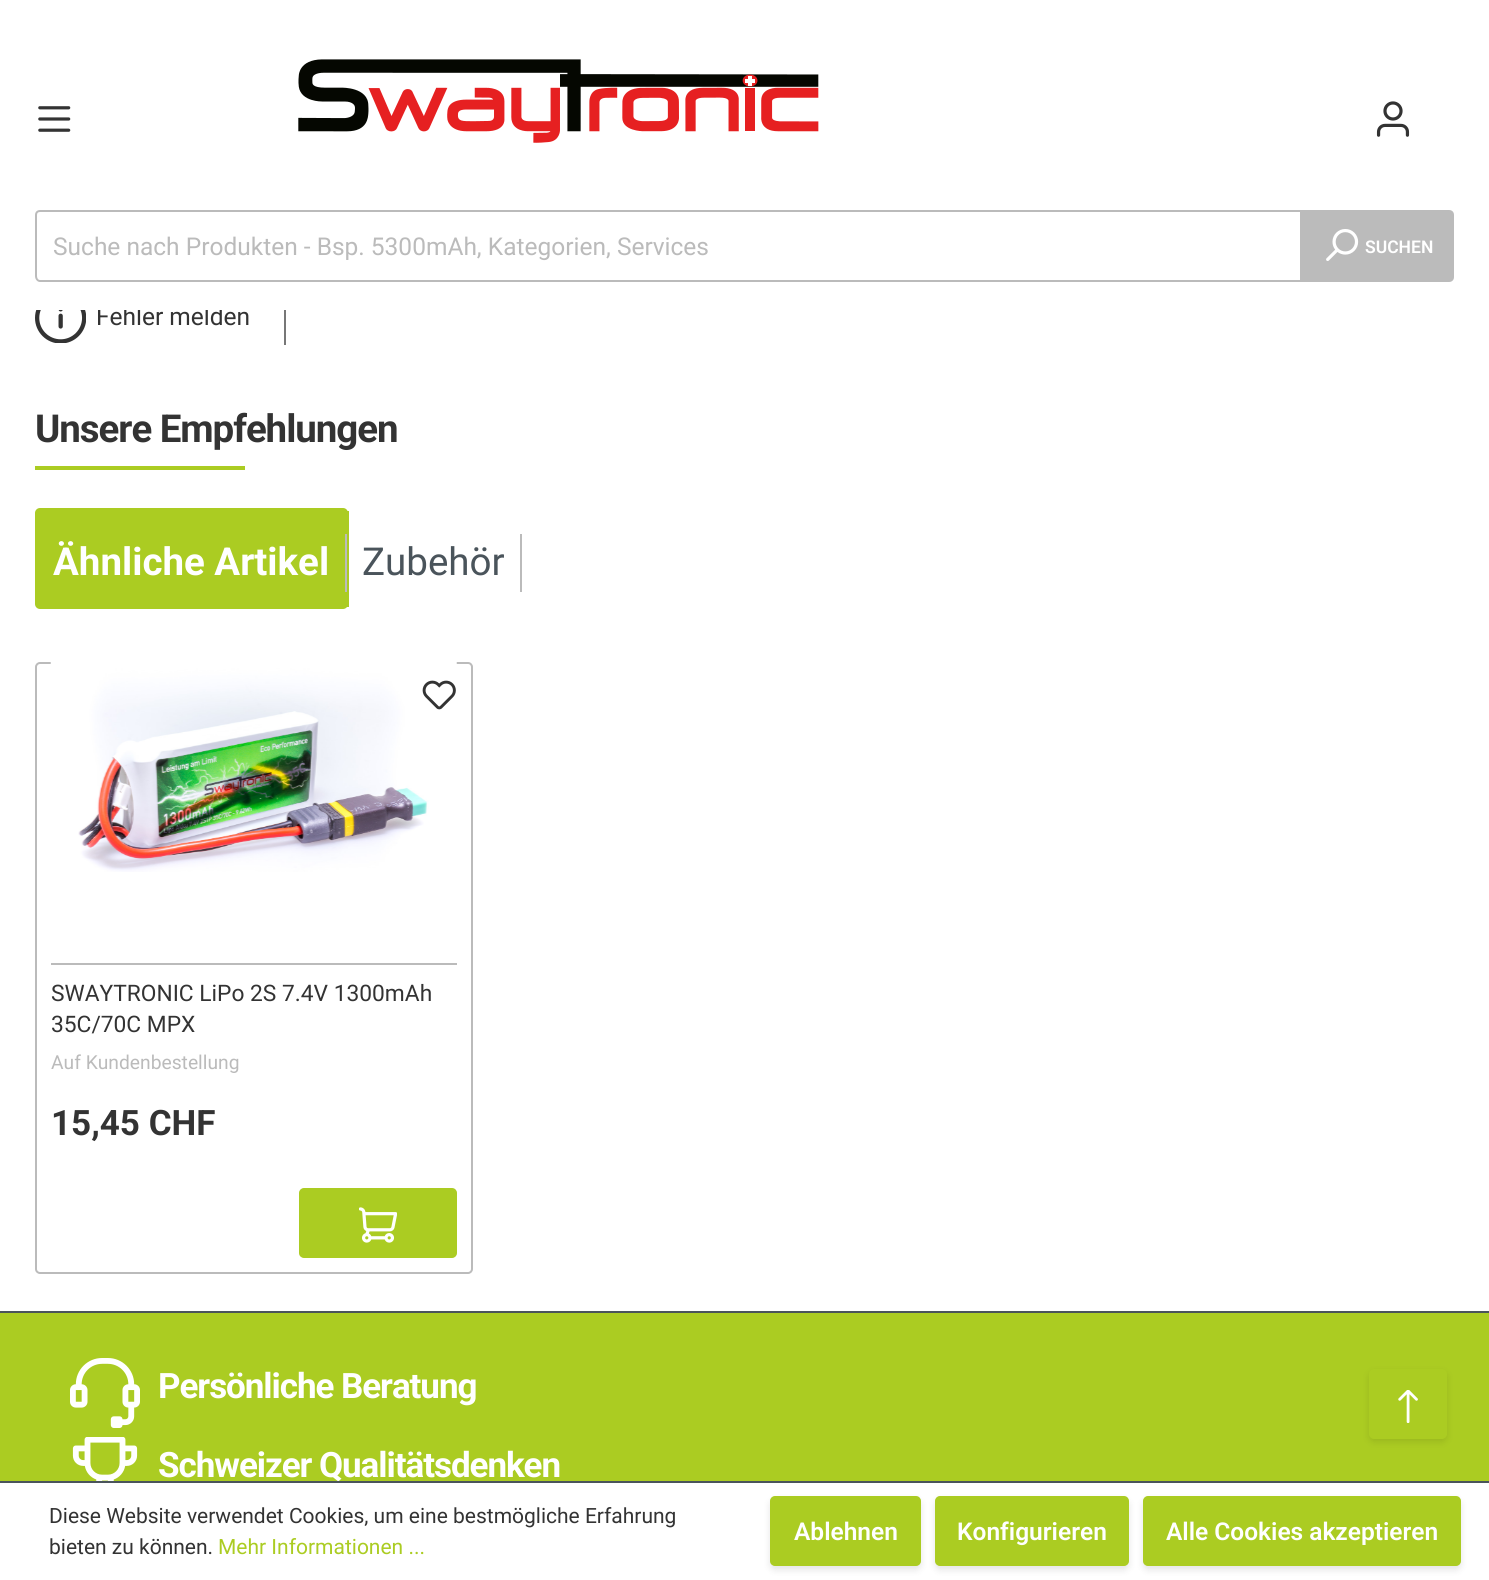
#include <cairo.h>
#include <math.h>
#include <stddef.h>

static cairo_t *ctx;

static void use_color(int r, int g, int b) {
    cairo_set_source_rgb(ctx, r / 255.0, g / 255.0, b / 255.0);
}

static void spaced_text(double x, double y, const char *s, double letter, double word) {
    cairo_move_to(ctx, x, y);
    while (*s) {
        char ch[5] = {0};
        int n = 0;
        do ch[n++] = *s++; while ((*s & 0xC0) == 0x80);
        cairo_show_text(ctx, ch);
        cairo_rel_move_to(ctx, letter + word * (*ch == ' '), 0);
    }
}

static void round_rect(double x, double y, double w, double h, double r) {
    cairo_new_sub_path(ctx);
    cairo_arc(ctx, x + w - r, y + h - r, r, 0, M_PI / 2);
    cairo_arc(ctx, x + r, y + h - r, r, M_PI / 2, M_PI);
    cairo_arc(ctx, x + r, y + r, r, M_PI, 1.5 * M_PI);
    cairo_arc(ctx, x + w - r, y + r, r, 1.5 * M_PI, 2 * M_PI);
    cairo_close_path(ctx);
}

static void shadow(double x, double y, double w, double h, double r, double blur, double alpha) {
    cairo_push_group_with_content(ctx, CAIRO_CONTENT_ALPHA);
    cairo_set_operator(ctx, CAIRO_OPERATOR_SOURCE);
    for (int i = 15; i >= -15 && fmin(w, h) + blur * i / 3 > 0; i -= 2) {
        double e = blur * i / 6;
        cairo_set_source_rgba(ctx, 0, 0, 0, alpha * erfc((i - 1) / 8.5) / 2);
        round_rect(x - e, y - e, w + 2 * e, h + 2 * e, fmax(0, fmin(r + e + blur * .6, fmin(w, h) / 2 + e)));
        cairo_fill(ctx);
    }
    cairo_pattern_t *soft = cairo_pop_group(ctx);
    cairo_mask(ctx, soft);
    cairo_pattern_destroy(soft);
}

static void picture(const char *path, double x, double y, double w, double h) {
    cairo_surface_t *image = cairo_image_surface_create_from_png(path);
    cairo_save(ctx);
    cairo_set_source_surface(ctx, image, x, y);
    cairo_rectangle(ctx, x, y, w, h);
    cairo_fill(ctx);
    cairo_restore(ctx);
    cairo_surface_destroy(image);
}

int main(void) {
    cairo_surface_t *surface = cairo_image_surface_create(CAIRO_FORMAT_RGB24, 1489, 1580);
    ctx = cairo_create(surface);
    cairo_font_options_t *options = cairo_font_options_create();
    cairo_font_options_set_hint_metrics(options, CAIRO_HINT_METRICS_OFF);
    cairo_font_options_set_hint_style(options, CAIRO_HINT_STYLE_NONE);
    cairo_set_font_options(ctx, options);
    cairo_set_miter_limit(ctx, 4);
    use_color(255, 255, 255);
    cairo_paint(ctx);
    cairo_select_font_face(ctx, "Roboto", CAIRO_FONT_SLANT_NORMAL, CAIRO_FONT_WEIGHT_NORMAL);
    cairo_set_font_size(ctx, 24.5);
    use_color(51, 51, 51);
    cairo_move_to(ctx, 96, 325);
    cairo_show_text(ctx, "Fehler melden");
    use_color(255, 255, 255);
    cairo_rectangle(ctx, 98, 306, 125, 4);
    cairo_fill(ctx);
    picture("img1.png", 38, 106, 33, 26);
    picture("img2.png", 298, 59, 521, 84);
    picture("img3.png", 1376, 101, 34, 36);
    use_color(187, 187, 187);
    cairo_set_fill_rule(ctx, CAIRO_FILL_RULE_EVEN_ODD);
    cairo_new_path(ctx);
    cairo_move_to(ctx, 40, 210);
    cairo_line_to(ctx, 1302, 210);
    cairo_line_to(ctx, 1302, 282);
    cairo_line_to(ctx, 40, 282);
    cairo_curve_to(ctx, 37, 282, 35, 279, 35, 276);
    cairo_line_to(ctx, 35, 215);
    cairo_curve_to(ctx, 35, 212, 37, 210, 40, 210);
    cairo_close_path(ctx);
    cairo_move_to(ctx, 40, 212);
    cairo_line_to(ctx, 1302, 212);
    cairo_line_to(ctx, 1302, 280);
    cairo_line_to(ctx, 40, 280);
    cairo_curve_to(ctx, 38, 280, 37, 278, 37, 276);
    cairo_line_to(ctx, 37, 215);
    cairo_curve_to(ctx, 37, 213, 38, 212, 40, 212);
    cairo_close_path(ctx);
    cairo_fill(ctx);
    cairo_move_to(ctx, 53, 255);
    cairo_show_text(ctx, "Suche nach Produkten - Bsp. 5300mAh, Kategorien, Services");
    cairo_new_path(ctx);
    cairo_move_to(ctx, 1300, 210);
    cairo_line_to(ctx, 1449, 210);
    cairo_curve_to(ctx, 1452, 210, 1454, 212, 1454, 215);
    cairo_line_to(ctx, 1454, 277);
    cairo_curve_to(ctx, 1454, 280, 1452, 282, 1449, 282);
    cairo_line_to(ctx, 1300, 282);
    cairo_close_path(ctx);
    cairo_fill(ctx);
    picture("img4.png", 1326, 229, 33, 32);
    cairo_select_font_face(ctx, "Roboto SemiBold", CAIRO_FONT_SLANT_NORMAL, CAIRO_FONT_WEIGHT_NORMAL);
    cairo_set_font_size(ctx, 17.5);
    use_color(255, 255, 255);
    cairo_move_to(ctx, 1365, 253);
    cairo_show_text(ctx, "SUCHEN");
    picture("img5.png", 35, 310, 51, 33);
    use_color(119, 119, 119);
    cairo_rectangle(ctx, 284, 310, 2, 35);
    cairo_fill(ctx);
    cairo_select_font_face(ctx, "Roboto", CAIRO_FONT_SLANT_NORMAL, CAIRO_FONT_WEIGHT_BOLD);
    cairo_set_font_size(ctx, 38.5);
    use_color(51, 51, 51);
    spaced_text(35, 442, "Unsere Empfehlungen", -1.05, 0);
    use_color(171, 204, 34);
    cairo_rectangle(ctx, 35, 466, 210, 4);
    cairo_fill(ctx);
    round_rect(35, 508, 313, 101, 5);
    cairo_fill(ctx);
    cairo_rectangle(ctx, 347, 511, 2, 96);
    cairo_fill(ctx);
    use_color(255, 255, 255);
    cairo_move_to(ctx, 53, 575);
    cairo_show_text(ctx, "Ähnliche Artikel");
    use_color(187, 187, 187);
    cairo_rectangle(ctx, 345, 534, 2, 58);
    cairo_fill(ctx);
    cairo_select_font_face(ctx, "Roboto", CAIRO_FONT_SLANT_NORMAL, CAIRO_FONT_WEIGHT_NORMAL);
    use_color(74, 84, 91);
    cairo_move_to(ctx, 362, 575);
    cairo_show_text(ctx, "Zubehör");
    use_color(187, 187, 187);
    cairo_rectangle(ctx, 520, 534, 2, 58);
    cairo_fill(ctx);
    round_rect(36, 663, 436, 610, 4);
    cairo_stroke(ctx);
    picture("img6.png", 50, 662, 407, 210);
    picture("img7.png", 422, 680, 34, 30);
    cairo_rectangle(ctx, 51, 963, 406, 2);
    cairo_fill(ctx);
    cairo_set_font_size(ctx, 22.75);
    use_color(51, 51, 51);
    cairo_move_to(ctx, 51, 1001);
    cairo_show_text(ctx, "SWAYTRONIC LiPo 2S 7.4V 1300mAh");
    cairo_move_to(ctx, 51, 1032);
    cairo_show_text(ctx, "35C/70C MPX");
    cairo_set_font_size(ctx, 19.25);
    use_color(187, 187, 187);
    cairo_move_to(ctx, 51, 1069);
    cairo_show_text(ctx, "Auf Kundenbestellung");
    cairo_select_font_face(ctx, "Roboto", CAIRO_FONT_SLANT_NORMAL, CAIRO_FONT_WEIGHT_BOLD);
    cairo_set_font_size(ctx, 35);
    use_color(51, 51, 51);
    cairo_move_to(ctx, 51, 1135);
    cairo_show_text(ctx, "15,45 CHF");
    use_color(171, 204, 34);
    round_rect(300, 1189, 156, 68, 4);
    cairo_fill_preserve(ctx);
    cairo_stroke(ctx);
    picture("img8.png", 359, 1207, 38, 36);
    use_color(74, 84, 91);
    cairo_rectangle(ctx, 0, 1311, 1489, 2);
    cairo_fill(ctx);
    use_color(171, 204, 34);
    cairo_rectangle(ctx, 0, 1313, 1489, 168);
    cairo_fill(ctx);
    picture("img9.png", 70, 1358, 70, 70);
    use_color(255, 255, 255);
    spaced_text(158, 1398, "Persönliche Beratung", -1.05, 0);
    picture("img10.png", 72, 1437, 66, 44);
    spaced_text(158, 1477, "Schweizer Qualitätsdenken", -1.05, 0);
    use_color(0, 0, 0);
    shadow(1369, 1372, 78, 70, 5, 3.5, 0.1);
    use_color(171, 204, 34);
    round_rect(1370, 1370, 76, 68, 4);
    cairo_fill_preserve(ctx);
    cairo_stroke(ctx);
    picture("img11.png", 1398, 1390, 20, 33);
    use_color(74, 84, 91);
    cairo_rectangle(ctx, 0, 1481, 1489, 2);
    cairo_fill(ctx);
    cairo_select_font_face(ctx, "Roboto", CAIRO_FONT_SLANT_NORMAL, CAIRO_FONT_WEIGHT_NORMAL);
    cairo_set_font_size(ctx, 21);
    use_color(51, 51, 51);
    cairo_move_to(ctx, 49, 1523);
    cairo_show_text(ctx, "Diese Website verwendet Cookies, um eine bestmögliche Erfahrung");
    cairo_move_to(ctx, 49, 1554);
    cairo_show_text(ctx, "bieten zu können.");
    use_color(171, 204, 34);
    cairo_move_to(ctx, 218, 1554);
    cairo_show_text(ctx, "Mehr Informationen ...");
    use_color(0, 0, 0);
    shadow(770, 1500, 151, 70, 5, 3.5, 0.1);
    use_color(171, 204, 34);
    round_rect(771, 1497, 149, 68, 4);
    cairo_fill_preserve(ctx);
    cairo_stroke(ctx);
    cairo_select_font_face(ctx, "Roboto SemiBold", CAIRO_FONT_SLANT_NORMAL, CAIRO_FONT_WEIGHT_NORMAL);
    cairo_set_font_size(ctx, 24.5);
    use_color(255, 255, 255);
    cairo_move_to(ctx, 794, 1540);
    cairo_show_text(ctx, "Ablehnen");
    use_color(0, 0, 0);
    shadow(935, 1500, 194, 70, 5, 3.5, 0.1);
    use_color(171, 204, 34);
    round_rect(936, 1497, 192, 68, 4);
    cairo_fill_preserve(ctx);
    cairo_stroke(ctx);
    use_color(255, 255, 255);
    cairo_move_to(ctx, 957, 1540);
    cairo_show_text(ctx, "Konfigurieren");
    use_color(0, 0, 0);
    shadow(1143, 1500, 318, 70, 5, 3.5, 0.1);
    use_color(171, 204, 34);
    round_rect(1144, 1497, 316, 68, 4);
    cairo_fill_preserve(ctx);
    cairo_stroke(ctx);
    use_color(255, 255, 255);
    cairo_move_to(ctx, 1166, 1540);
    cairo_show_text(ctx, "Alle Cookies akzeptieren");
    cairo_surface_write_to_png(surface, "result.png");
    cairo_font_options_destroy(options);
    cairo_destroy(ctx);
    cairo_surface_destroy(surface);
    return 0;
}
